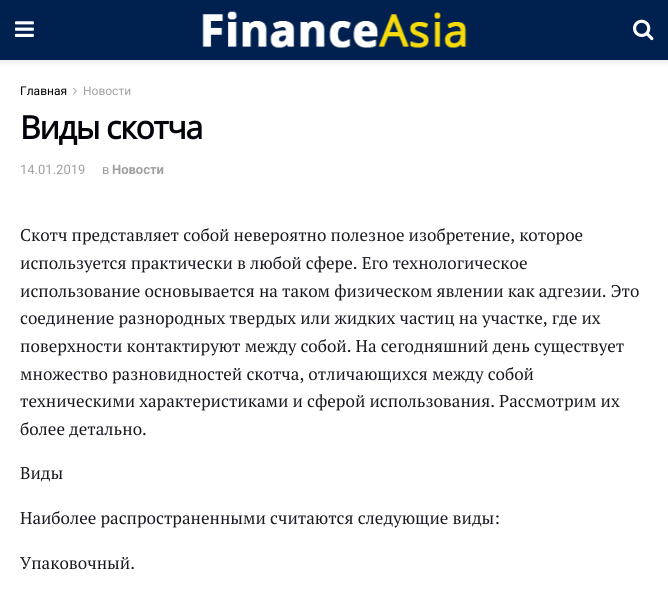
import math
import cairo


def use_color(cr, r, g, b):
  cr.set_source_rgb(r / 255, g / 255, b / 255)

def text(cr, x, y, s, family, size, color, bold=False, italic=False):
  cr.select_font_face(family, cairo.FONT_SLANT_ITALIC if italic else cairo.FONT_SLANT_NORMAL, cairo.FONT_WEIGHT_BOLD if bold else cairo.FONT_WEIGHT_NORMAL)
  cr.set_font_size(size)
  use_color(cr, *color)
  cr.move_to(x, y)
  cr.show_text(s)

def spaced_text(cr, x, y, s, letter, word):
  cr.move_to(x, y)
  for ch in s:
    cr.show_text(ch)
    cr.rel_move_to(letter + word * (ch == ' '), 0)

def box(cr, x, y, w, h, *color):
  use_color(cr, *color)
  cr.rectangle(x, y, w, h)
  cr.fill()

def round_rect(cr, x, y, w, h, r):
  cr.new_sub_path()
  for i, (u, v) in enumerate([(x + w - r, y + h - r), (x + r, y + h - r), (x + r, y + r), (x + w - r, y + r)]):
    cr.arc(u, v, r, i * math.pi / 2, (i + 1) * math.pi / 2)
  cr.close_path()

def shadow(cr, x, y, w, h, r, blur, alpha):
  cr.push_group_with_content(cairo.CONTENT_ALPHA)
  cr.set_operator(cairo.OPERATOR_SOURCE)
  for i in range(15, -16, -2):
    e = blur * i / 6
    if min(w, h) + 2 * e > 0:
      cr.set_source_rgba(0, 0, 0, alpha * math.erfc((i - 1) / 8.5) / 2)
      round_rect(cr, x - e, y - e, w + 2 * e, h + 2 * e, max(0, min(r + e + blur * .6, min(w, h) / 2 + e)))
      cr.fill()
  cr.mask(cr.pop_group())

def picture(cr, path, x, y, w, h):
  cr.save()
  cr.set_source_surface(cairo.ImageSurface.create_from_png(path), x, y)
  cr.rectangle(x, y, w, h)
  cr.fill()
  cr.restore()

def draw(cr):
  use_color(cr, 255, 255, 255)
  cr.paint()
  use_color(cr, 0, 0, 0)
  shadow(cr, 0, 2, 668, 60, 0, 3, 0.1)
  box(cr, 0, 0, 668, 60, 0, 33, 79)
  picture(cr, "img_01.png", 15, 21, 19, 16)
  picture(cr, "img_02.png", 202, 11, 265, 37)
  picture(cr, "img_03.png", 633, 19, 21, 22)
  picture(cr, "img_04.png", 73, 87, 4, 8)
  text(cr, 20, 95, "Главная", "Roboto", 12, (0, 0, 0))
  text(cr, 83, 95, "Новости", "Roboto", 12, (160, 160, 160))
  cr.select_font_face("Open Sans", cairo.FONT_SLANT_NORMAL, cairo.FONT_WEIGHT_BOLD)
  cr.set_font_size(32)
  use_color(cr, 2, 1, 10)
  spaced_text(cr, 20, 139, "Виды скотча", -1.25, 0)
  text(cr, 20, 174, "14.01.2019", "Roboto", 13, (160, 160, 160))
  text(cr, 102, 174, "в", "Roboto", 13, (160, 160, 160))
  text(cr, 112, 174, "Новости", "Roboto", 13, (160, 160, 160), bold=True)
  text(cr, 20, 241, "Скотч представляет собой невероятно полезное изобретение, которое", "PT Serif", 17, (25, 24, 32))
  text(cr, 20, 269, "используется практически в любой сфере. Его технологическое", "PT Serif", 17, (25, 24, 32))
  text(cr, 20, 297, "использование основывается на таком физическом явлении как адгезии. Это", "PT Serif", 17, (25, 24, 32))
  text(cr, 20, 324, "соединение разнородных твердых или жидких частиц на участке, где их", "PT Serif", 17, (25, 24, 32))
  text(cr, 20, 352, "поверхности контактируют между собой. На сегодняшний день существует", "PT Serif", 17, (25, 24, 32))
  text(cr, 20, 380, "множество разновидностей скотча, отличающихся между собой", "PT Serif", 17, (25, 24, 32))
  text(cr, 20, 407, "техническими характеристиками и сферой использования. Рассмотрим их", "PT Serif", 17, (25, 24, 32))
  text(cr, 20, 435, "более детально.", "PT Serif", 17, (25, 24, 32))
  text(cr, 20, 479, "Виды", "PT Serif", 17, (25, 24, 32))
  text(cr, 20, 524, "Наиболее распространенными считаются следующие виды:", "PT Serif", 17, (25, 24, 32))
  text(cr, 20, 569, "Упаковочный.", "PT Serif", 17, (25, 24, 32))


surface = cairo.ImageSurface(cairo.FORMAT_RGB24, 668, 604)
cr = cairo.Context(surface)
options = cairo.FontOptions()
options.set_hint_metrics(cairo.HINT_METRICS_OFF)
options.set_hint_style(cairo.HINT_STYLE_NONE)
cr.set_font_options(options)
cr.set_miter_limit(4)
draw(cr)
surface.write_to_png("out.png")
